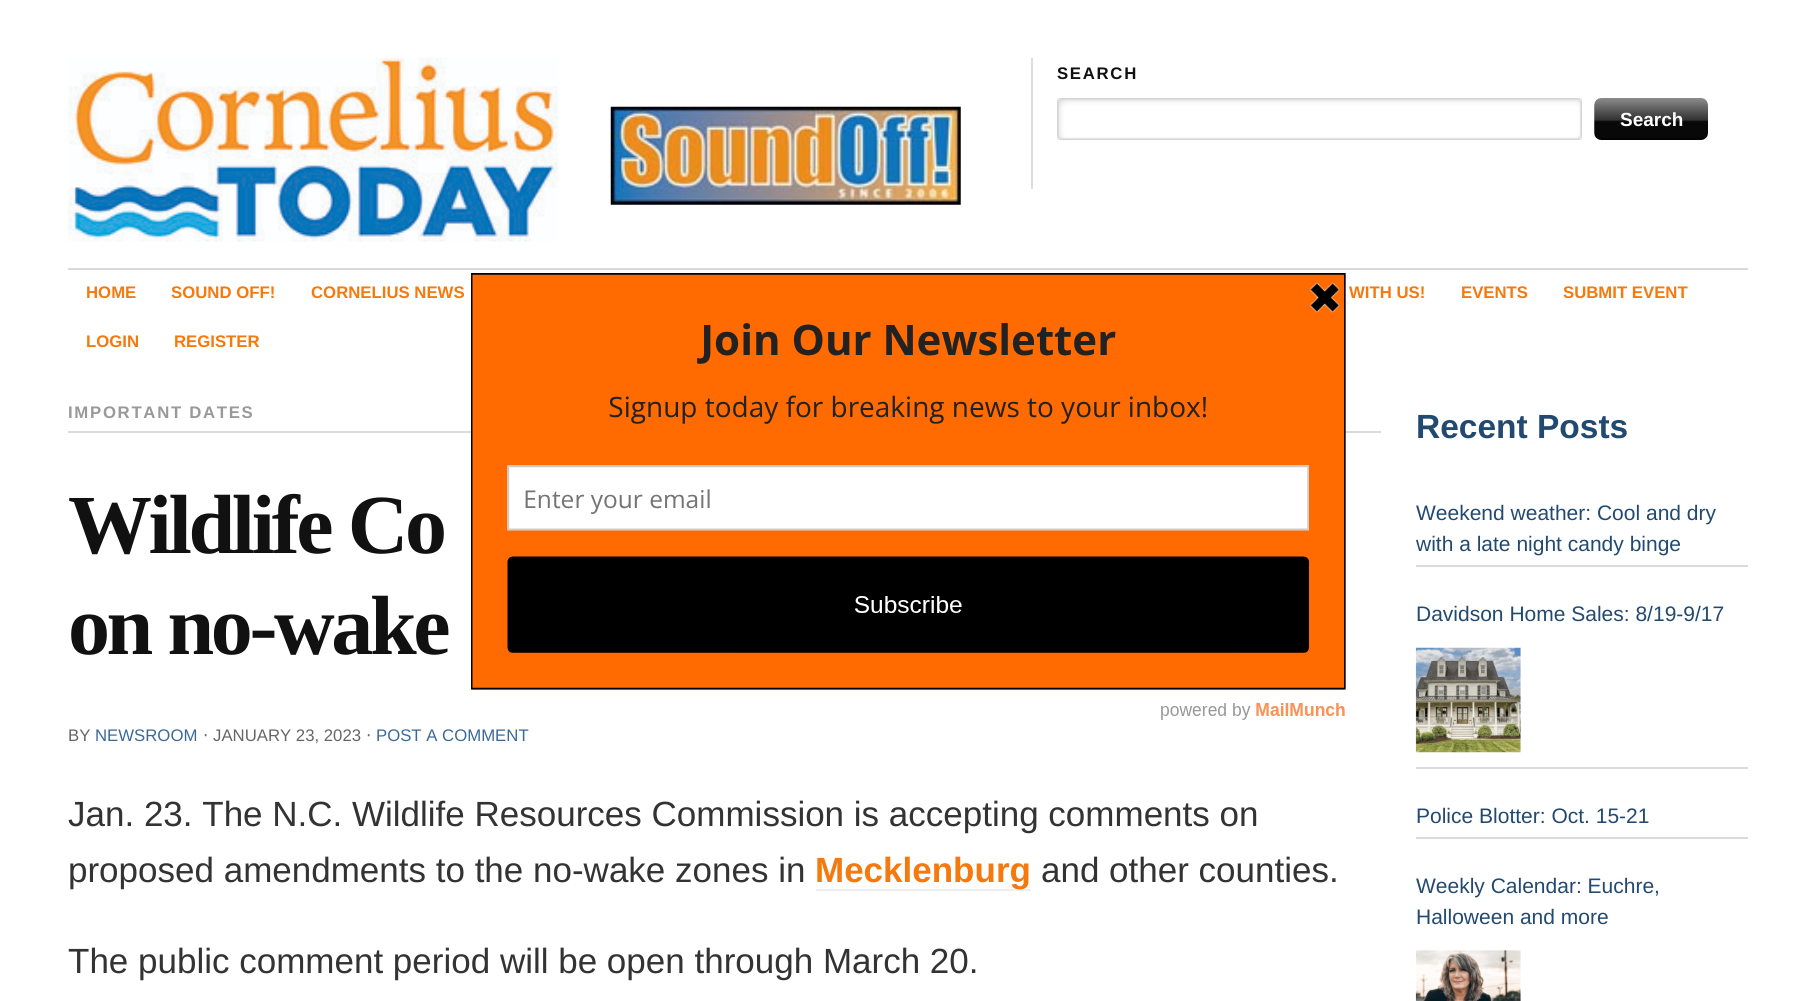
import math
import cairo


def use_color(cr, r, g, b):
  cr.set_source_rgb(r / 255, g / 255, b / 255)

def text(cr, x, y, s, family, size, color, bold=False, italic=False):
  cr.select_font_face(family, cairo.FONT_SLANT_ITALIC if italic else cairo.FONT_SLANT_NORMAL, cairo.FONT_WEIGHT_BOLD if bold else cairo.FONT_WEIGHT_NORMAL)
  cr.set_font_size(size)
  use_color(cr, *color)
  cr.move_to(x, y)
  cr.show_text(s)

def spaced_text(cr, x, y, s, letter, word):
  cr.move_to(x, y)
  for ch in s:
    cr.show_text(ch)
    cr.rel_move_to(letter + word * (ch == ' '), 0)

def box(cr, x, y, w, h, *color):
  use_color(cr, *color)
  cr.rectangle(x, y, w, h)
  cr.fill()

def picture(cr, path, x, y, w, h):
  cr.save()
  cr.set_source_surface(cairo.ImageSurface.create_from_png(path), x, y)
  cr.rectangle(x, y, w, h)
  cr.fill()
  cr.restore()

def draw(cr):
  use_color(cr, 255, 255, 255)
  cr.paint()
  picture(cr, "img_01.png", 68, 57, 491, 185)
  box(cr, 1031, 58, 2, 131, 221, 221, 221)
  picture(cr, "img_02.png", 1057, 98, 525, 42)
  picture(cr, "img_03.png", 1594, 98, 114, 42)
  picture(cr, "img_04.png", 610, 106, 351, 99)
  box(cr, 68, 268, 1680, 2, 218, 218, 218)
  box(cr, 68, 431, 1313, 2, 218, 218, 218)
  box(cr, 816, 889, 215, 2, 238, 238, 238)
  box(cr, 1416, 565, 332, 2, 218, 218, 218)
  box(cr, 1416, 767, 332, 2, 218, 218, 218)
  picture(cr, "img_05.png", 1415, 647, 106, 106)
  box(cr, 1416, 837, 332, 2, 218, 218, 218)
  picture(cr, "img_06.png", 1415, 950, 106, 51)
  picture(cr, "img_07.png", 471, 273, 875, 447)
  cr.select_font_face("Liberation Sans", cairo.FONT_SLANT_NORMAL, cairo.FONT_WEIGHT_BOLD)
  cr.set_font_size(16.75)
  use_color(cr, 17, 17, 17)
  spaced_text(cr, 1057, 79, "SEARCH", 1.7, 0)
  text(cr, 1620, 126, "Search", "Liberation Sans", 19, (255, 255, 255), bold=True)
  text(cr, 86, 298, "HOME", "Liberation Sans", 16.75, (245, 121, 12), bold=True)
  text(cr, 171, 298, "SOUND OFF!", "Liberation Sans", 16.75, (245, 121, 12), bold=True)
  text(cr, 311, 298, "CORNELIUS NEWS", "Liberation Sans", 16.75, (245, 121, 12), bold=True)
  text(cr, 1349, 298, "WITH US!", "Liberation Sans", 16.75, (245, 121, 12), bold=True)
  text(cr, 1461, 298, "EVENTS", "Liberation Sans", 16.75, (245, 121, 12), bold=True)
  text(cr, 1563, 298, "SUBMIT EVENT", "Liberation Sans", 16.75, (245, 121, 12), bold=True)
  text(cr, 86, 347, "LOGIN", "Liberation Sans", 16.75, (245, 121, 12), bold=True)
  text(cr, 174, 347, "REGISTER", "Liberation Sans", 16.75, (245, 121, 12), bold=True)
  use_color(cr, 153, 153, 153)
  spaced_text(cr, 68, 418, "IMPORTANT DATES", 1.7, 0)
  cr.select_font_face("Liberation Serif", cairo.FONT_SLANT_NORMAL, cairo.FONT_WEIGHT_BOLD)
  cr.set_font_size(84)
  use_color(cr, 17, 17, 17)
  spaced_text(cr, 68, 553, "Wildlife Co", -3.4, 0)
  spaced_text(cr, 68, 654, "on no-wake", -3.4, 0)
  text(cr, 68, 741, "BY", "Liberation Sans", 16.75, (102, 102, 102))
  text(cr, 95, 741, "NEWSROOM", "Liberation Sans", 16.75, (58, 105, 153))
  text(cr, 203, 741, "⋅", "DejaVu Sans", 16.75, (102, 102, 102))
  text(cr, 213, 741, "JANUARY 23, 2023", "Liberation Sans", 16.75, (102, 102, 102))
  text(cr, 366, 741, "⋅", "DejaVu Sans", 16.75, (102, 102, 102))
  text(cr, 376, 741, "POST A COMMENT", "Liberation Sans", 16.75, (58, 105, 153))
  text(cr, 68, 826, "Jan. 23. The N.C. Wildlife Resources Commission is accepting comments on", "Liberation Sans", 35, (51, 51, 51))
  text(cr, 68, 882, "proposed amendments to the no-wake zones in", "Liberation Sans", 35, (51, 51, 51))
  text(cr, 815, 882, "Mecklenburg", "Liberation Sans", 35, (245, 121, 12), bold=True)
  text(cr, 1041, 882, "and other counties.", "Liberation Sans", 35, (51, 51, 51))
  text(cr, 68, 973, "The public comment period will be open through March 20.", "Liberation Sans", 35, (51, 51, 51))
  text(cr, 1416, 438, "Recent Posts", "Liberation Sans", 33.5, (34, 73, 112), bold=True)
  text(cr, 1416, 520, "Weekend weather: Cool and dry", "Liberation Sans", 21, (34, 73, 112))
  text(cr, 1416, 551, "with a late night candy binge", "Liberation Sans", 21, (34, 73, 112))
  text(cr, 1416, 621, "Davidson Home Sales: 8/19-9/17", "Liberation Sans", 21, (34, 73, 112))
  text(cr, 1416, 823, "Police Blotter: Oct. 15-21", "Liberation Sans", 21, (34, 73, 112))
  text(cr, 1416, 893, "Weekly Calendar: Euchre,", "Liberation Sans", 21, (34, 73, 112))
  text(cr, 1416, 924, "Halloween and more", "Liberation Sans", 21, (34, 73, 112))


surface = cairo.ImageSurface(cairo.FORMAT_RGB24, 1815, 1001)
cr = cairo.Context(surface)
options = cairo.FontOptions()
options.set_hint_metrics(cairo.HINT_METRICS_OFF)
options.set_hint_style(cairo.HINT_STYLE_NONE)
cr.set_font_options(options)
cr.set_miter_limit(4)
draw(cr)
surface.write_to_png("out.png")
